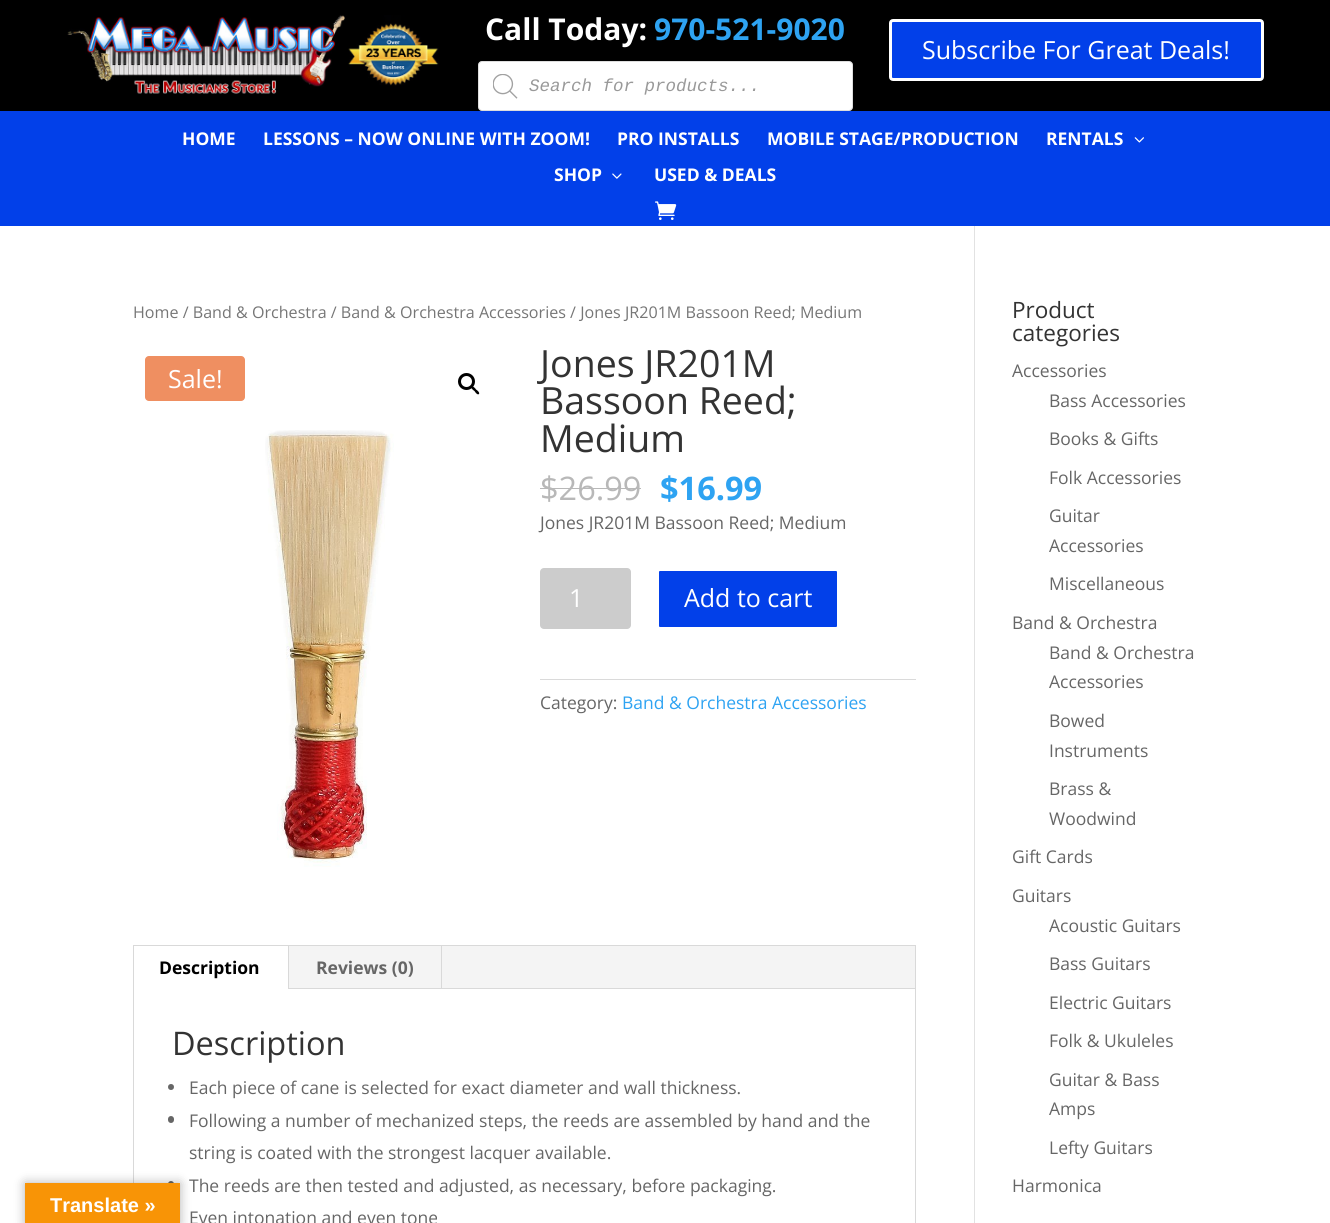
import math
import cairo


def use_color(cr, r, g, b):
  cr.set_source_rgb(r / 255, g / 255, b / 255)

def text(cr, x, y, s, family, size, color, bold=False, italic=False):
  cr.select_font_face(family, cairo.FONT_SLANT_ITALIC if italic else cairo.FONT_SLANT_NORMAL, cairo.FONT_WEIGHT_BOLD if bold else cairo.FONT_WEIGHT_NORMAL)
  cr.set_font_size(size)
  use_color(cr, *color)
  cr.move_to(x, y)
  cr.show_text(s)

def box(cr, x, y, w, h, *color):
  use_color(cr, *color)
  cr.rectangle(x, y, w, h)
  cr.fill()

def round_rect(cr, x, y, w, h, r):
  cr.new_sub_path()
  for i, (u, v) in enumerate([(x + w - r, y + h - r), (x + r, y + h - r), (x + r, y + r), (x + w - r, y + r)]):
    cr.arc(u, v, r, i * math.pi / 2, (i + 1) * math.pi / 2)
  cr.close_path()

def shadow(cr, x, y, w, h, r, blur, alpha):
  cr.push_group_with_content(cairo.CONTENT_ALPHA)
  cr.set_operator(cairo.OPERATOR_SOURCE)
  for i in range(15, -16, -2):
    e = blur * i / 6
    if min(w, h) + 2 * e > 0:
      cr.set_source_rgba(0, 0, 0, alpha * math.erfc((i - 1) / 8.5) / 2)
      round_rect(cr, x - e, y - e, w + 2 * e, h + 2 * e, max(0, min(r + e + blur * .6, min(w, h) / 2 + e)))
      cr.fill()
  cr.mask(cr.pop_group())

def picture(cr, path, x, y, w, h):
  cr.save()
  cr.set_source_surface(cairo.ImageSurface.create_from_png(path), x, y)
  cr.rectangle(x, y, w, h)
  cr.fill()
  cr.restore()

def draw(cr):
  use_color(cr, 0, 0, 0)
  cr.paint()
  box(cr, 0, 226, 1330, 997, 255, 255, 255)
  cr.rectangle(133.5, 945.5, 782, 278)
  use_color(cr, 217, 217, 217)
  cr.set_line_width(1)
  cr.stroke()
  use_color(cr, 102, 102, 102)
  round_rect(cr, 168, 1181, 6, 7, 3)
  cr.fill()
  use_color(cr, 0, 0, 0)
  shadow(cr, 25, 1183, 155, 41, 0, 5.5, 0.3)
  box(cr, 25, 1183, 155, 40, 248, 148, 6)
  picture(cr, "img_01.png", 67, 15, 372, 79)
  use_color(cr, 255, 255, 255)
  round_rect(cr, 478.5, 61.5, 374, 49, 3.5)
  cr.fill_preserve()
  use_color(cr, 221, 221, 221)
  cr.stroke()
  picture(cr, "img_02.png", 493, 74, 25, 25)
  use_color(cr, 2, 64, 233)
  round_rect(cr, 890.5, 20.5, 372, 59, 2.5)
  cr.fill_preserve()
  use_color(cr, 255, 255, 255)
  cr.set_line_width(3)
  cr.stroke()
  box(cr, 0, 111, 1330, 115, 2, 64, 233)
  picture(cr, "img_03.png", 1134, 137, 10, 6)
  picture(cr, "img_04.png", 612, 173, 10, 6)
  picture(cr, "img_05.png", 655, 201, 22, 19)
  box(cr, 974, 226, 1, 997, 226, 226, 226)
  use_color(cr, 239, 143, 97)
  round_rect(cr, 145, 356, 100, 45, 4)
  cr.fill()
  cr.arc(466.5, 381.5, 7, 0, 2 * math.pi)
  use_color(cr, 0, 0, 0)
  cr.stroke()
  cr.new_path()
  cr.move_to(471.5, 387)
  cr.curve_to(473, 385.5, 475.5, 388.5, 476, 389.5)
  cr.curve_to(477, 390, 480, 392.5, 479, 394)
  cr.curve_to(477.5, 395.5, 475, 392, 474.5, 391)
  cr.curve_to(473.5, 390.5, 470.5, 388, 471.5, 387)
  cr.close_path()
  cr.fill()
  picture(cr, "img_06.png", 265, 430, 129, 437)
  box(cr, 540, 488, 101, 1, 184, 184, 184)
  use_color(cr, 204, 204, 204)
  round_rect(cr, 540, 568, 91, 61, 4)
  cr.fill()
  use_color(cr, 2, 64, 233)
  round_rect(cr, 657.5, 569.5, 181, 59, 2.5)
  cr.fill_preserve()
  use_color(cr, 255, 255, 255)
  cr.stroke()
  box(cr, 540, 679, 376, 1, 218, 218, 218)
  box(cr, 289, 946, 626, 42, 244, 244, 244)
  box(cr, 288, 946, 1, 43, 217, 217, 217)
  box(cr, 441, 946, 1, 43, 217, 217, 217)
  box(cr, 289, 988, 626, 1, 217, 217, 217)
  use_color(cr, 102, 102, 102)
  cr.arc(171, 1087, 3, 0, 2 * math.pi)
  cr.fill()
  round_rect(cr, 168, 1116, 6, 7, 3)
  cr.fill()
  text(cr, 50, 1212, "Translate »", "Liberation Sans", 20, (255, 255, 255), bold=True)
  text(cr, 485, 40, "Call Today:", "Open Sans", 30, (255, 255, 255), bold=True)
  text(cr, 654, 40, "970-521-9020", "Open Sans", 30, (46, 163, 242), bold=True)
  text(cr, 529, 91, "Search for products...", "Liberation Mono", 17.5, (153, 153, 153), italic=True)
  text(cr, 922, 59, "Subscribe For Great Deals!", "Open Sans", 25, (255, 255, 255))
  text(cr, 182, 145, "HOME", "Open Sans", 17.5, (255, 255, 255), bold=True)
  text(cr, 263, 145, "LESSONS – NOW ONLINE WITH ZOOM!", "Open Sans", 17.5, (255, 255, 255), bold=True)
  text(cr, 617, 145, "PRO INSTALLS", "Open Sans", 17.5, (255, 255, 255), bold=True)
  text(cr, 767, 145, "MOBILE STAGE/PRODUCTION", "Open Sans", 17.5, (255, 255, 255), bold=True)
  text(cr, 1046, 145, "RENTALS", "Open Sans", 17.5, (255, 255, 255), bold=True)
  text(cr, 554, 181, "SHOP", "Open Sans", 17.5, (255, 255, 255), bold=True)
  text(cr, 654, 181, "USED & DEALS", "Open Sans", 17.5, (255, 255, 255), bold=True)
  text(cr, 133, 318, "Home / Band & Orchestra / Band & Orchestra Accessories / Jones JR201M Bassoon Reed; Medium", "Open Sans", 16.1, (118, 118, 118))
  text(cr, 168, 388, "Sale!", "Open Sans", 25, (255, 255, 255))
  text(cr, 540, 377, "Jones JR201M", "Open Sans", 37.5, (51, 51, 51))
  text(cr, 540, 414, "Bassoon Reed;", "Open Sans", 37.5, (51, 51, 51))
  text(cr, 540, 452, "Medium", "Open Sans", 37.5, (51, 51, 51))
  text(cr, 540, 500, "$26.99", "Open Sans", 32.5, (184, 184, 184))
  text(cr, 660, 500, "$16.99", "Open Sans", 32.5, (46, 163, 242), bold=True)
  text(cr, 540, 529, "Jones JR201M Bassoon Reed; Medium", "Open Sans", 17.5, (102, 102, 102))
  text(cr, 569, 607, "1", "Open Sans", 25, (255, 255, 255))
  text(cr, 684, 607, "Add to cart", "Open Sans", 25, (255, 255, 255))
  text(cr, 540, 709, "Category:", "Open Sans", 17.5, (102, 102, 102))
  text(cr, 622, 709, "Band & Orchestra Accessories", "Open Sans", 17.5, (46, 163, 242))
  text(cr, 159, 974, "Description", "Open Sans", 17.5, (0, 0, 0), bold=True)
  text(cr, 316, 974, "Reviews (0)", "Open Sans", 17.5, (102, 102, 102), bold=True)
  text(cr, 172, 1055, "Description", "Open Sans", 32.5, (51, 51, 51))
  text(cr, 189, 1094, "Each piece of cane is selected for exact diameter and wall thickness.", "Open Sans", 17.5, (102, 102, 102))
  text(cr, 189, 1127, "Following a number of mechanized steps, the reeds are assembled by hand and the", "Open Sans", 17.5, (102, 102, 102))
  text(cr, 189, 1159, "string is coated with the strongest lacquer available.", "Open Sans", 17.5, (102, 102, 102))
  text(cr, 189, 1192, "The reeds are then tested and adjusted, as necessary, before packaging.", "Open Sans", 17.5, (102, 102, 102))
  text(cr, 189, 1224, "Even intonation and even tone", "Open Sans", 17.5, (102, 102, 102))
  text(cr, 1012, 318, "Product", "Open Sans", 22.5, (51, 51, 51))
  text(cr, 1012, 341, "categories", "Open Sans", 22.5, (51, 51, 51))
  text(cr, 1012, 377, "Accessories", "Open Sans", 17.5, (102, 102, 102))
  text(cr, 1049, 407, "Bass Accessories", "Open Sans", 17.5, (102, 102, 102))
  text(cr, 1049, 445, "Books & Gifts", "Open Sans", 17.5, (102, 102, 102))
  text(cr, 1049, 484, "Folk Accessories", "Open Sans", 17.5, (102, 102, 102))
  text(cr, 1049, 522, "Guitar", "Open Sans", 17.5, (102, 102, 102))
  text(cr, 1049, 552, "Accessories", "Open Sans", 17.5, (102, 102, 102))
  text(cr, 1049, 590, "Miscellaneous", "Open Sans", 17.5, (102, 102, 102))
  text(cr, 1012, 629, "Band & Orchestra", "Open Sans", 17.5, (102, 102, 102))
  text(cr, 1049, 659, "Band & Orchestra", "Open Sans", 17.5, (102, 102, 102))
  text(cr, 1049, 688, "Accessories", "Open Sans", 17.5, (102, 102, 102))
  text(cr, 1049, 727, "Bowed", "Open Sans", 17.5, (102, 102, 102))
  text(cr, 1049, 757, "Instruments", "Open Sans", 17.5, (102, 102, 102))
  text(cr, 1049, 795, "Brass &", "Open Sans", 17.5, (102, 102, 102))
  text(cr, 1049, 825, "Woodwind", "Open Sans", 17.5, (102, 102, 102))
  text(cr, 1012, 863, "Gift Cards", "Open Sans", 17.5, (102, 102, 102))
  text(cr, 1012, 902, "Guitars", "Open Sans", 17.5, (102, 102, 102))
  text(cr, 1049, 932, "Acoustic Guitars", "Open Sans", 17.5, (102, 102, 102))
  text(cr, 1049, 970, "Bass Guitars", "Open Sans", 17.5, (102, 102, 102))
  text(cr, 1049, 1009, "Electric Guitars", "Open Sans", 17.5, (102, 102, 102))
  text(cr, 1049, 1047, "Folk & Ukuleles", "Open Sans", 17.5, (102, 102, 102))
  text(cr, 1049, 1086, "Guitar & Bass", "Open Sans", 17.5, (102, 102, 102))
  text(cr, 1049, 1115, "Amps", "Open Sans", 17.5, (102, 102, 102))
  text(cr, 1049, 1154, "Lefty Guitars", "Open Sans", 17.5, (102, 102, 102))
  text(cr, 1012, 1192, "Harmonica", "Open Sans", 17.5, (102, 102, 102))


surface = cairo.ImageSurface(cairo.FORMAT_RGB24, 1330, 1223)
cr = cairo.Context(surface)
options = cairo.FontOptions()
options.set_hint_metrics(cairo.HINT_METRICS_OFF)
options.set_hint_style(cairo.HINT_STYLE_NONE)
cr.set_font_options(options)
cr.set_miter_limit(4)
draw(cr)
surface.write_to_png("out.png")
